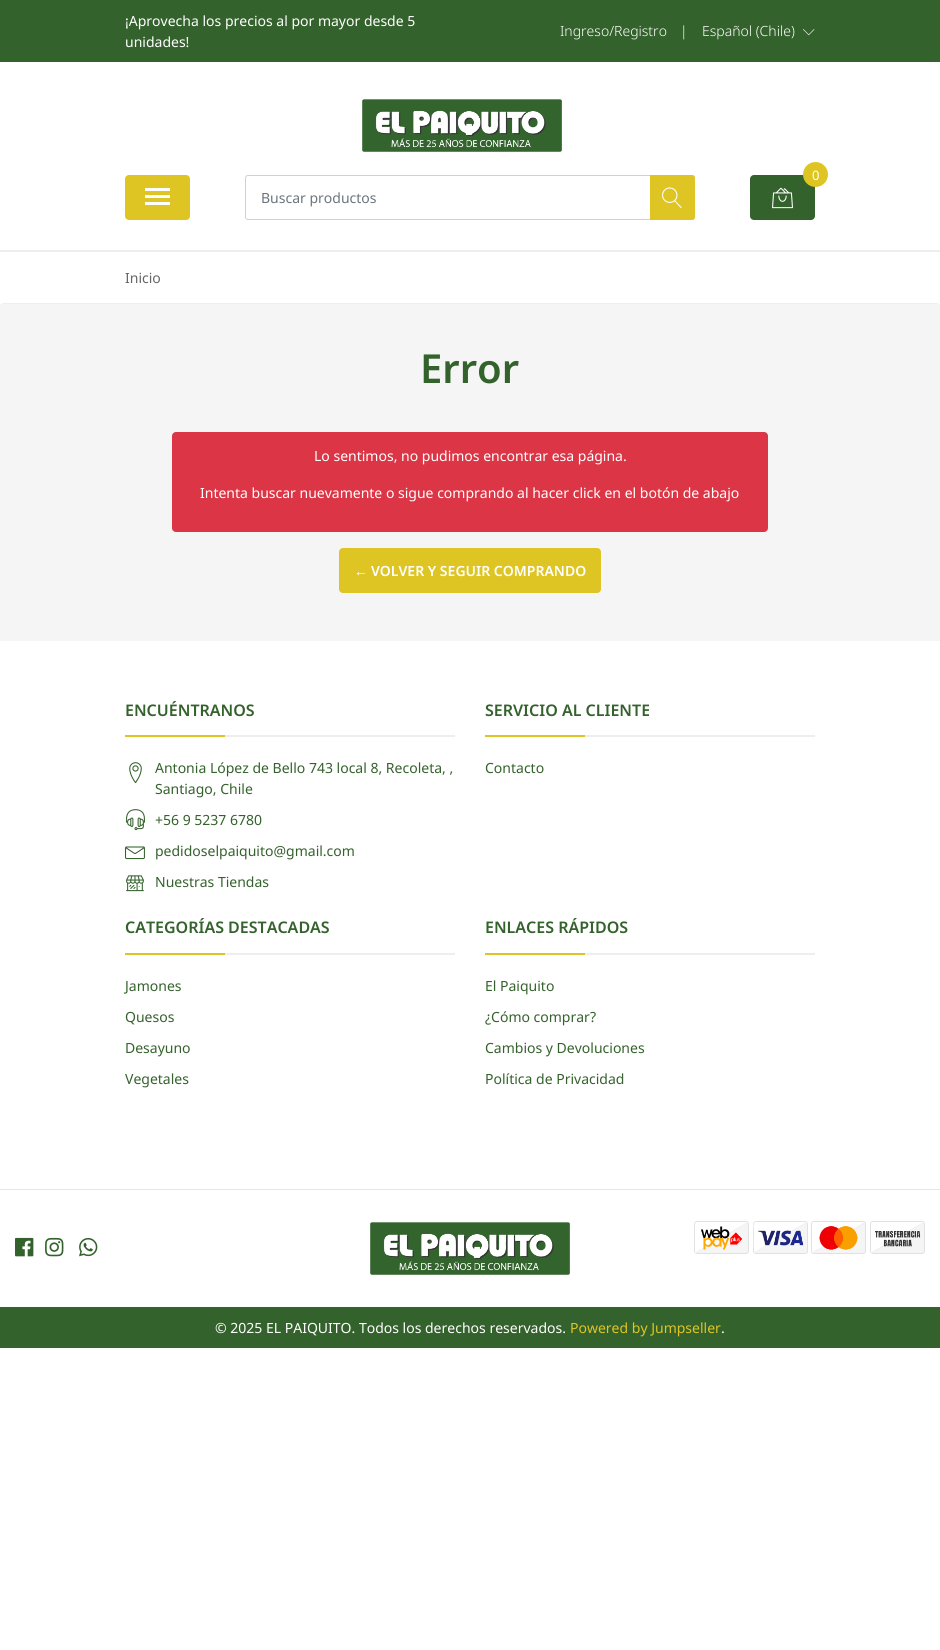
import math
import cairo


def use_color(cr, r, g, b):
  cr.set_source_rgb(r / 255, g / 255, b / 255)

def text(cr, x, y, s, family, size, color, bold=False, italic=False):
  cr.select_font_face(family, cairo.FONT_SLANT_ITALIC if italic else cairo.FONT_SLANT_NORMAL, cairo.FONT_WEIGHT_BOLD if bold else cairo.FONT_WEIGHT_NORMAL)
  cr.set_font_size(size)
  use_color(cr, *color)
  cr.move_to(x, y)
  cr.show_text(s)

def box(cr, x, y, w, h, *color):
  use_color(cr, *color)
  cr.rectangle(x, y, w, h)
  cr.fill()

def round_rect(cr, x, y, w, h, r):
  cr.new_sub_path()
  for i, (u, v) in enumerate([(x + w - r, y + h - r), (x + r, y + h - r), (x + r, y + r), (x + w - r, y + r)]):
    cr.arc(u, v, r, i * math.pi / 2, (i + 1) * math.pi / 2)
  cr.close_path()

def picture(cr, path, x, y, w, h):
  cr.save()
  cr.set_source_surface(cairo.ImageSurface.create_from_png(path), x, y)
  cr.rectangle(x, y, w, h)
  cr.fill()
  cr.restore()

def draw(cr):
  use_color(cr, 255, 255, 255)
  cr.paint()
  box(cr, 0, 0, 940, 62, 52, 98, 44)
  picture(cr, "img_01.png", 803, 29, 12, 7)
  picture(cr, "img_02.png", 362, 99, 200, 53)
  use_color(cr, 222, 197, 35)
  round_rect(cr, 125, 175, 65, 45, 4)
  cr.fill()
  box(cr, 145, 188, 25, 3, 255, 255, 255)
  box(cr, 145, 195, 25, 3, 255, 255, 255)
  box(cr, 145, 202, 25, 3, 255, 255, 255)
  round_rect(cr, 245.5, 175.5, 449, 44, 2.5)
  use_color(cr, 209, 209, 209)
  cr.set_line_width(1)
  cr.stroke()
  use_color(cr, 222, 197, 35)
  cr.new_path()
  cr.move_to(650, 175)
  cr.line_to(692, 175)
  cr.curve_to(693.5, 175, 695, 176.5, 695, 178)
  cr.line_to(695, 217)
  cr.curve_to(695, 218.5, 693.5, 220, 692, 220)
  cr.line_to(650, 220)
  cr.close_path()
  cr.fill()
  picture(cr, "img_03.png", 662, 187, 20, 21)
  use_color(cr, 52, 98, 44)
  round_rect(cr, 750, 175, 65, 45, 4)
  cr.fill()
  picture(cr, "img_04.png", 772, 187, 21, 22)
  use_color(cr, 222, 197, 35)
  cr.arc(815.5, 174.5, 12.5, 0, 2 * math.pi)
  cr.fill()
  box(cr, 0, 250, 940, 2, 238, 238, 238)
  box(cr, 2, 303, 936, 1, 238, 238, 238)
  box(cr, 0, 304, 940, 337, 245, 245, 245)
  use_color(cr, 220, 53, 69)
  round_rect(cr, 172, 432, 596, 100, 4)
  cr.fill()
  use_color(cr, 222, 197, 35)
  round_rect(cr, 339, 548, 262, 45, 4)
  cr.fill()
  box(cr, 225, 735, 230, 2, 238, 238, 238)
  box(cr, 125, 735, 100, 2, 222, 197, 35)
  picture(cr, "img_05.png", 129, 762, 13, 22)
  picture(cr, "img_06.png", 126, 809, 19, 22)
  picture(cr, "img_07.png", 125, 846, 20, 14)
  picture(cr, "img_08.png", 126, 875, 18, 17)
  box(cr, 585, 735, 230, 2, 238, 238, 238)
  box(cr, 485, 735, 100, 2, 222, 197, 35)
  box(cr, 225, 953, 230, 2, 238, 238, 238)
  box(cr, 125, 953, 100, 2, 222, 197, 35)
  box(cr, 585, 953, 230, 2, 238, 238, 238)
  box(cr, 485, 953, 100, 2, 222, 197, 35)
  box(cr, 0, 1189, 940, 1, 230, 230, 230)
  picture(cr, "img_09.png", 15, 1237, 19, 20)
  picture(cr, "img_10.png", 45, 1237, 19, 20)
  picture(cr, "img_11.png", 79, 1237, 19, 20)
  picture(cr, "img_12.png", 370, 1222, 200, 53)
  use_color(cr, 245, 245, 245)
  round_rect(cr, 694.5, 1221.5, 54, 32, 2.5)
  cr.fill_preserve()
  use_color(cr, 225, 225, 225)
  cr.stroke()
  use_color(cr, 255, 255, 255)
  cr.new_path()
  cr.move_to(697, 1222)
  cr.line_to(746, 1222)
  cr.line_to(748, 1223)
  cr.line_to(696, 1253)
  cr.curve_to(695, 1253, 695, 1252, 695, 1251)
  cr.line_to(695, 1224)
  cr.curve_to(695, 1223, 696, 1222, 697, 1222)
  cr.close_path()
  cr.fill()
  cr.save()
  round_rect(cr, 695, 1222, 53, 31, 2)
  cr.clip()
  cr.new_path()
  cr.move_to(713, 1128.5)
  cr.line_to(762.5, 1214)
  cr.line_to(677, 1263.5)
  cr.line_to(627.5, 1178)
  cr.close_path()
  use_color(cr, 238, 238, 238)
  cr.stroke()
  cr.restore()
  picture(cr, "img_13.png", 701, 1226, 41, 24)
  use_color(cr, 245, 245, 245)
  round_rect(cr, 753.5, 1221.5, 54, 32, 2.5)
  cr.fill_preserve()
  use_color(cr, 225, 225, 225)
  cr.stroke()
  use_color(cr, 255, 255, 255)
  cr.new_path()
  cr.move_to(756, 1222)
  cr.line_to(805, 1222)
  cr.line_to(807, 1223)
  cr.line_to(755, 1253)
  cr.curve_to(753, 1251, 754, 1236, 754, 1233)
  cr.curve_to(754, 1231, 752, 1222, 756, 1222)
  cr.close_path()
  cr.fill()
  cr.save()
  round_rect(cr, 754, 1222, 53, 31, 2)
  cr.clip()
  cr.new_path()
  cr.move_to(772, 1128.5)
  cr.line_to(821.5, 1214)
  cr.line_to(735.5, 1263.5)
  cr.line_to(686, 1178)
  cr.close_path()
  use_color(cr, 238, 238, 238)
  cr.stroke()
  cr.restore()
  picture(cr, "img_14.png", 758, 1230, 46, 16)
  use_color(cr, 245, 245, 245)
  round_rect(cr, 811.5, 1221.5, 54, 32, 2.5)
  cr.fill_preserve()
  use_color(cr, 225, 225, 225)
  cr.stroke()
  use_color(cr, 255, 255, 255)
  cr.new_path()
  cr.move_to(814, 1222)
  cr.line_to(863, 1222)
  cr.line_to(865, 1223)
  cr.line_to(813, 1253)
  cr.curve_to(813, 1253, 812, 1252, 812, 1251)
  cr.line_to(812, 1224)
  cr.curve_to(812, 1223, 813, 1222, 814, 1222)
  cr.close_path()
  cr.fill()
  cr.save()
  round_rect(cr, 812, 1222, 53, 31, 2)
  cr.clip()
  cr.new_path()
  cr.move_to(830.5, 1128.5)
  cr.line_to(880, 1214)
  cr.line_to(794, 1263.5)
  cr.line_to(744.5, 1178)
  cr.close_path()
  use_color(cr, 238, 238, 238)
  cr.stroke()
  cr.restore()
  picture(cr, "img_15.png", 819, 1226, 39, 24)
  use_color(cr, 245, 245, 245)
  round_rect(cr, 870.5, 1221.5, 54, 32, 2.5)
  cr.fill_preserve()
  use_color(cr, 225, 225, 225)
  cr.stroke()
  use_color(cr, 255, 255, 255)
  cr.new_path()
  cr.move_to(873, 1222)
  cr.line_to(922, 1222)
  cr.line_to(924, 1223)
  cr.line_to(872, 1253)
  cr.curve_to(871, 1253, 871, 1252, 871, 1251)
  cr.line_to(871, 1224)
  cr.curve_to(871, 1223, 872, 1222, 873, 1222)
  cr.close_path()
  cr.fill()
  cr.save()
  round_rect(cr, 871, 1222, 53, 31, 2)
  cr.clip()
  cr.new_path()
  cr.move_to(889, 1128.5)
  cr.line_to(938.5, 1214)
  cr.line_to(853, 1263.5)
  cr.line_to(803.5, 1178)
  cr.close_path()
  use_color(cr, 238, 238, 238)
  cr.stroke()
  cr.restore()
  picture(cr, "img_16.png", 875, 1230, 46, 17)
  box(cr, 0, 1307, 940, 41, 52, 98, 44)
  text(cr, 125, 26, "¡Aprovecha los precios al por mayor desde 5", "Noto Sans", 14, (255, 255, 255))
  text(cr, 125, 47, "unidades!", "Noto Sans", 14, (255, 255, 255))
  text(cr, 560, 36, "Ingreso/Registro", "Noto Sans Light", 14, (255, 255, 255))
  text(cr, 680, 36, "|", "Noto Sans Light", 14, (255, 255, 255))
  text(cr, 702, 36, "Español (Chile)", "Noto Sans Light", 14, (255, 255, 255))
  text(cr, 261, 203, "Buscar productos", "Noto Sans", 14, (108, 117, 125))
  text(cr, 812, 180, "0", "Noto Sans", 13, (255, 255, 255))
  text(cr, 125, 283, "Inicio", "Noto Sans", 14, (102, 102, 102))
  text(cr, 420, 383, "Error", "Noto Sans SemiBold", 40, (52, 98, 44))
  text(cr, 314, 461, "Lo sentimos, no pudimos encontrar esa página.", "Noto Sans", 14, (255, 255, 255))
  text(cr, 200, 498, "Intenta buscar nuevamente o sigue comprando al hacer click en el botón de abajo", "Noto Sans", 14, (255, 255, 255))
  text(cr, 354, 576, "←", "Liberation Serif", 14, (255, 255, 255), bold=True)
  text(cr, 371, 576, "VOLVER Y SEGUIR COMPRANDO", "Noto Sans SemiBold", 14, (255, 255, 255))
  text(cr, 125, 716, "ENCUÉNTRANOS", "Noto Sans SemiBold", 16, (52, 98, 44))
  text(cr, 155, 773, "Antonia López de Bello 743 local 8, Recoleta, ,", "Noto Sans", 14, (52, 98, 44))
  text(cr, 155, 794, "Santiago, Chile", "Noto Sans", 14, (52, 98, 44))
  text(cr, 155, 825, "+56 9 5237 6780", "Noto Sans", 14, (52, 98, 44))
  text(cr, 155, 856, "pedidoselpaiquito@gmail.com", "Noto Sans", 14, (52, 98, 44))
  text(cr, 155, 887, "Nuestras Tiendas", "Noto Sans", 14, (52, 98, 44))
  text(cr, 485, 716, "SERVICIO AL CLIENTE", "Noto Sans SemiBold", 16, (52, 98, 44))
  text(cr, 485, 773, "Contacto", "Noto Sans", 14, (52, 98, 44))
  text(cr, 125, 933, "CATEGORÍAS DESTACADAS", "Noto Sans SemiBold", 16, (52, 98, 44))
  text(cr, 125, 991, "Jamones", "Noto Sans", 14, (52, 98, 44))
  text(cr, 125, 1022, "Quesos", "Noto Sans", 14, (52, 98, 44))
  text(cr, 125, 1053, "Desayuno", "Noto Sans", 14, (52, 98, 44))
  text(cr, 125, 1084, "Vegetales", "Noto Sans", 14, (52, 98, 44))
  text(cr, 485, 933, "ENLACES RÁPIDOS", "Noto Sans SemiBold", 16, (52, 98, 44))
  text(cr, 485, 991, "El Paiquito", "Noto Sans", 14, (52, 98, 44))
  text(cr, 485, 1022, "¿Cómo comprar?", "Noto Sans", 14, (52, 98, 44))
  text(cr, 485, 1053, "Cambios y Devoluciones", "Noto Sans", 14, (52, 98, 44))
  text(cr, 485, 1084, "Política de Privacidad", "Noto Sans", 14, (52, 98, 44))
  text(cr, 215, 1333, "© 2025 EL PAIQUITO. Todos los derechos reservados.", "Noto Sans", 14, (255, 255, 255))
  text(cr, 570, 1333, "Powered by Jumpseller", "Noto Sans", 14, (222, 197, 35))
  text(cr, 721, 1333, ".", "Noto Sans", 14, (255, 255, 255))


surface = cairo.ImageSurface(cairo.FORMAT_RGB24, 940, 1650)
cr = cairo.Context(surface)
options = cairo.FontOptions()
options.set_hint_metrics(cairo.HINT_METRICS_OFF)
options.set_hint_style(cairo.HINT_STYLE_NONE)
cr.set_font_options(options)
cr.set_miter_limit(4)
draw(cr)
surface.write_to_png("out.png")
